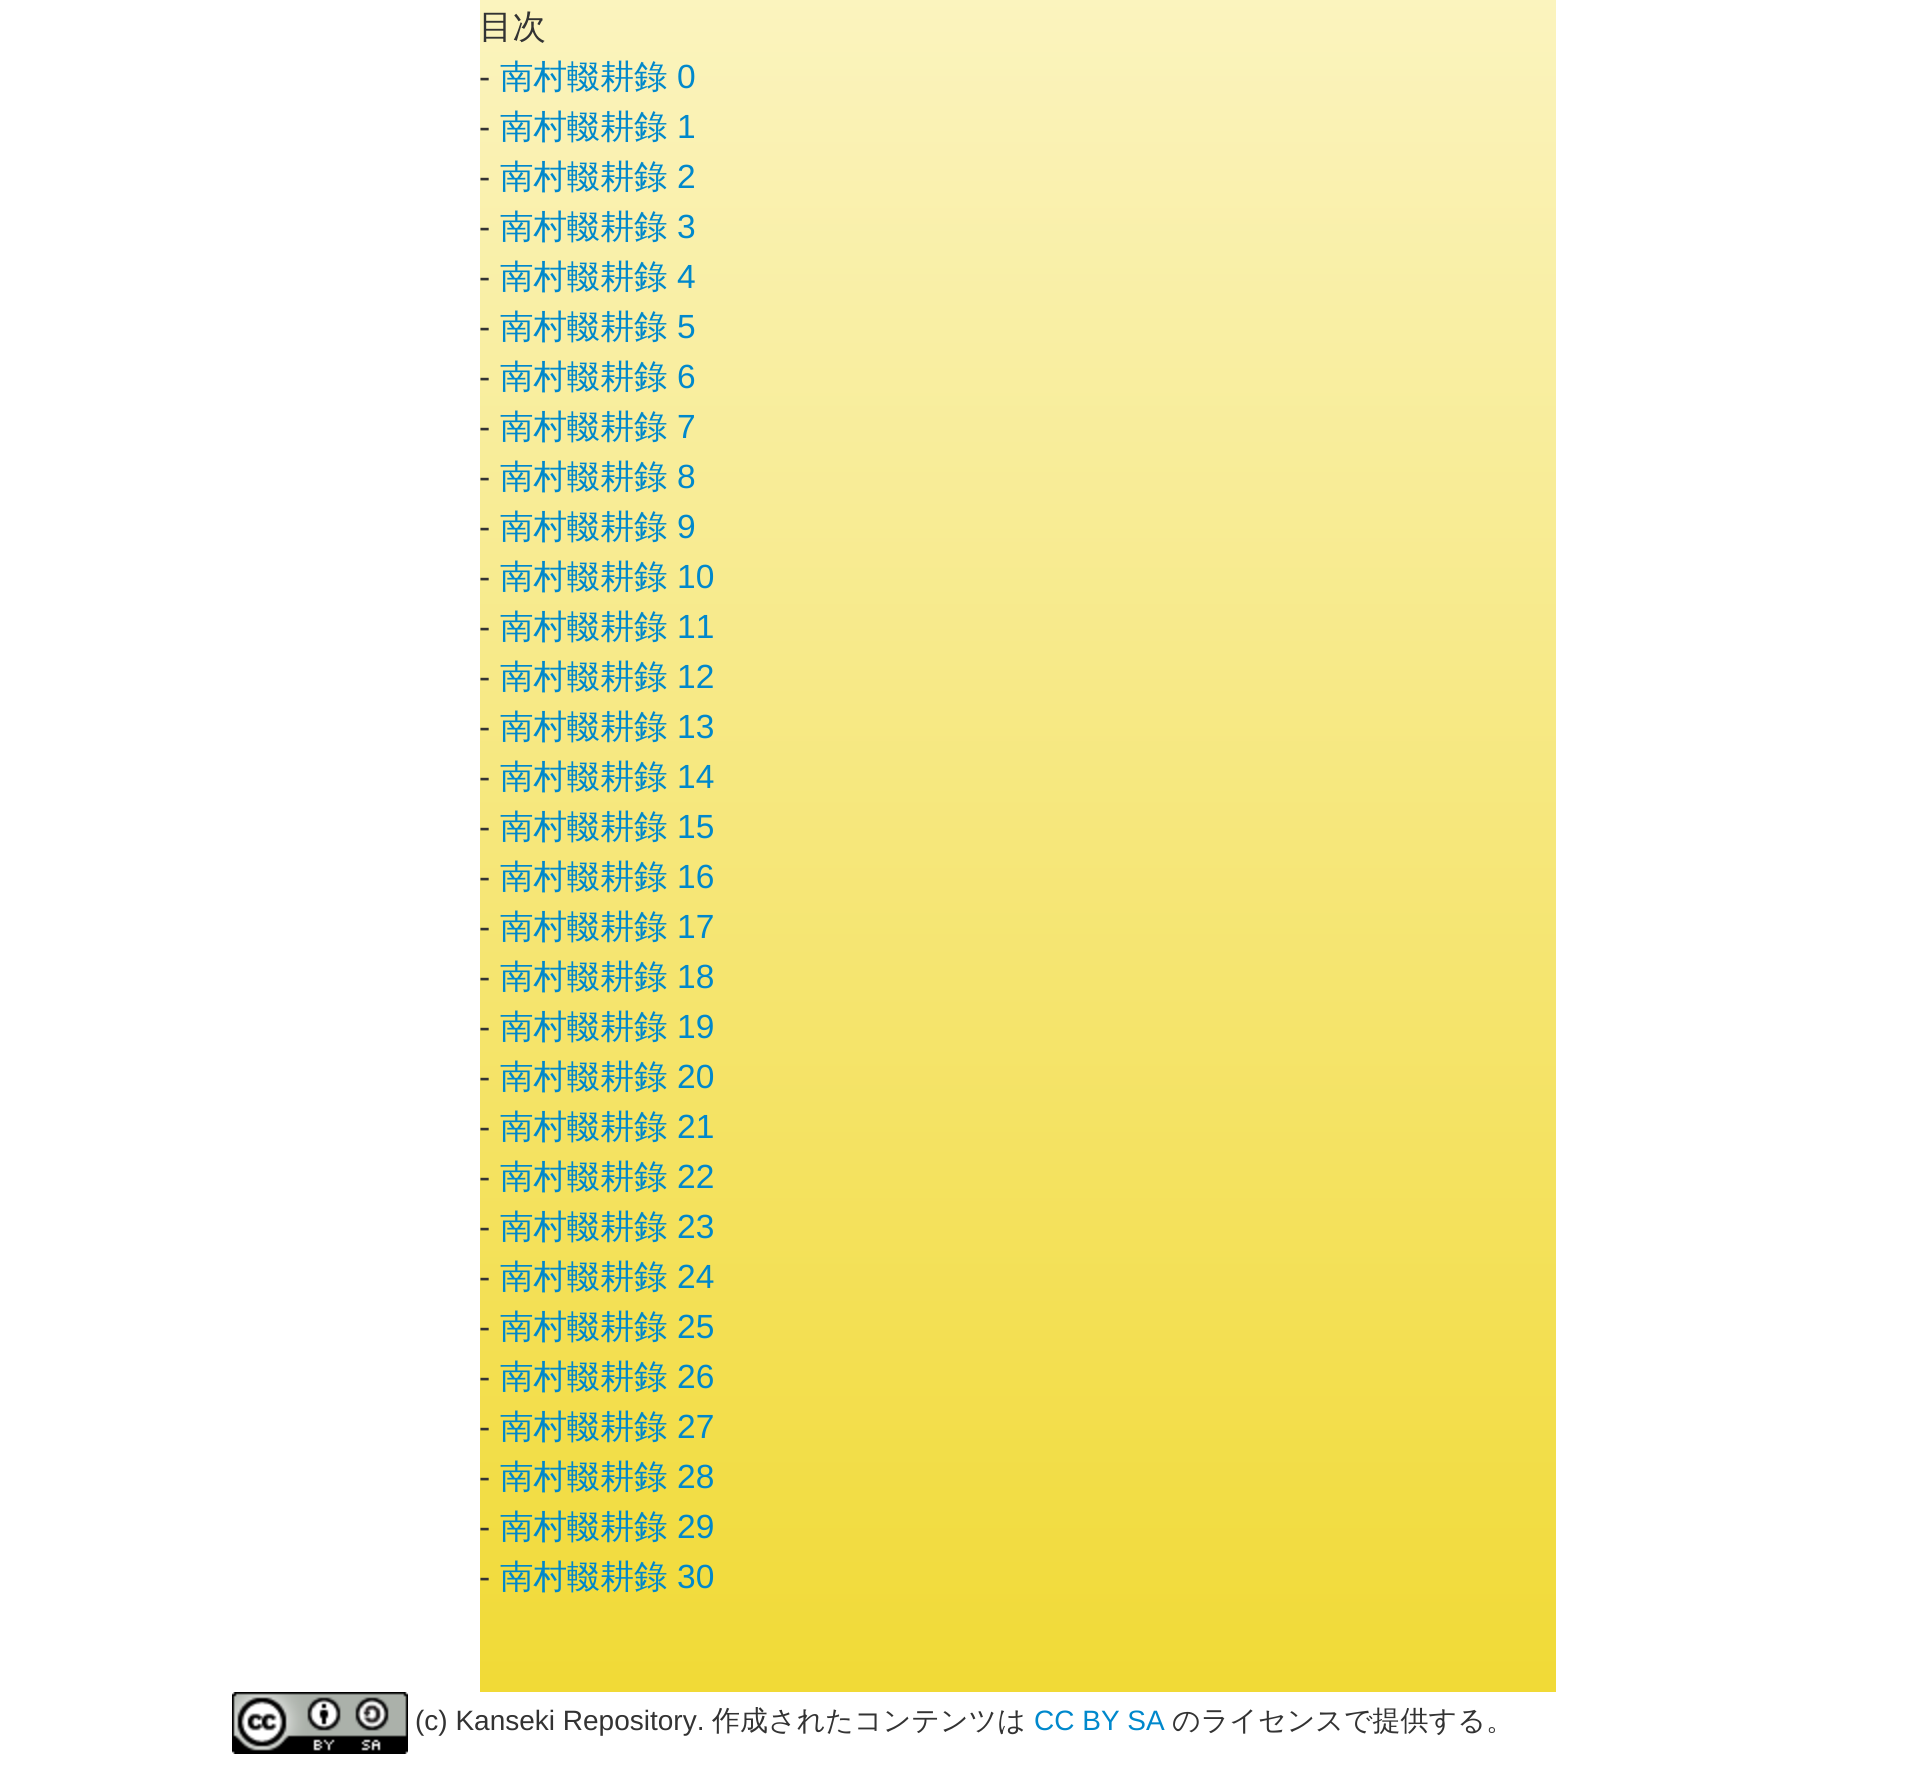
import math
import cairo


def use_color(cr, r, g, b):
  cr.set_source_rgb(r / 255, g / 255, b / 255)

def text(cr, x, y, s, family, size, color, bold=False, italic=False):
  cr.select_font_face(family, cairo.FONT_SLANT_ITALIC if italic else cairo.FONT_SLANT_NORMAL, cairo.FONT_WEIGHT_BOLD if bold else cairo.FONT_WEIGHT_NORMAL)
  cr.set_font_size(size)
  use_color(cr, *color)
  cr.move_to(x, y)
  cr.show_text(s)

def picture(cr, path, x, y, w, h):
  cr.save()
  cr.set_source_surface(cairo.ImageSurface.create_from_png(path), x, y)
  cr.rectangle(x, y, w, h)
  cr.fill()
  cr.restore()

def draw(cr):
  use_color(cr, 255, 255, 255)
  cr.paint()
  gradient = cairo.LinearGradient(1018, -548, 1018, 1692)
  gradient.add_color_stop_rgba(0, 0.996, 0.988, 0.918, 1)
  gradient.add_color_stop_rgba(1, 0.945, 0.855, 0.212, 1)
  cr.set_source(gradient)
  cr.rectangle(480, 0, 1076, 1692)
  cr.fill()
  picture(cr, "img_01.png", 232, 1692, 176, 62)
  text(cr, 479, 38, "目次", "WenQuanYi Zen Hei Medium", 33.5, (51, 51, 51))
  text(cr, 479, 88, "-", "Liberation Sans", 33.5, (51, 51, 51))
  text(cr, 500, 88, "南村輟耕錄", "WenQuanYi Zen Hei Medium", 33.5, (0, 136, 204))
  text(cr, 677, 88, "0", "Liberation Sans", 33.5, (0, 136, 204))
  text(cr, 479, 138, "-", "Liberation Sans", 33.5, (51, 51, 51))
  text(cr, 500, 138, "南村輟耕錄", "WenQuanYi Zen Hei Medium", 33.5, (0, 136, 204))
  text(cr, 677, 138, "1", "Liberation Sans", 33.5, (0, 136, 204))
  text(cr, 479, 188, "-", "Liberation Sans", 33.5, (51, 51, 51))
  text(cr, 500, 188, "南村輟耕錄", "WenQuanYi Zen Hei Medium", 33.5, (0, 136, 204))
  text(cr, 677, 188, "2", "Liberation Sans", 33.5, (0, 136, 204))
  text(cr, 479, 238, "-", "Liberation Sans", 33.5, (51, 51, 51))
  text(cr, 500, 238, "南村輟耕錄", "WenQuanYi Zen Hei Medium", 33.5, (0, 136, 204))
  text(cr, 677, 238, "3", "Liberation Sans", 33.5, (0, 136, 204))
  text(cr, 479, 288, "-", "Liberation Sans", 33.5, (51, 51, 51))
  text(cr, 500, 288, "南村輟耕錄", "WenQuanYi Zen Hei Medium", 33.5, (0, 136, 204))
  text(cr, 677, 288, "4", "Liberation Sans", 33.5, (0, 136, 204))
  text(cr, 479, 338, "-", "Liberation Sans", 33.5, (51, 51, 51))
  text(cr, 500, 338, "南村輟耕錄", "WenQuanYi Zen Hei Medium", 33.5, (0, 136, 204))
  text(cr, 677, 338, "5", "Liberation Sans", 33.5, (0, 136, 204))
  text(cr, 479, 388, "-", "Liberation Sans", 33.5, (51, 51, 51))
  text(cr, 500, 388, "南村輟耕錄", "WenQuanYi Zen Hei Medium", 33.5, (0, 136, 204))
  text(cr, 677, 388, "6", "Liberation Sans", 33.5, (0, 136, 204))
  text(cr, 479, 438, "-", "Liberation Sans", 33.5, (51, 51, 51))
  text(cr, 500, 438, "南村輟耕錄", "WenQuanYi Zen Hei Medium", 33.5, (0, 136, 204))
  text(cr, 677, 438, "7", "Liberation Sans", 33.5, (0, 136, 204))
  text(cr, 479, 488, "-", "Liberation Sans", 33.5, (51, 51, 51))
  text(cr, 500, 488, "南村輟耕錄", "WenQuanYi Zen Hei Medium", 33.5, (0, 136, 204))
  text(cr, 677, 488, "8", "Liberation Sans", 33.5, (0, 136, 204))
  text(cr, 479, 538, "-", "Liberation Sans", 33.5, (51, 51, 51))
  text(cr, 500, 538, "南村輟耕錄", "WenQuanYi Zen Hei Medium", 33.5, (0, 136, 204))
  text(cr, 677, 538, "9", "Liberation Sans", 33.5, (0, 136, 204))
  text(cr, 479, 588, "-", "Liberation Sans", 33.5, (51, 51, 51))
  text(cr, 500, 588, "南村輟耕錄", "WenQuanYi Zen Hei Medium", 33.5, (0, 136, 204))
  text(cr, 677, 588, "10", "Liberation Sans", 33.5, (0, 136, 204))
  text(cr, 479, 638, "-", "Liberation Sans", 33.5, (51, 51, 51))
  text(cr, 500, 638, "南村輟耕錄", "WenQuanYi Zen Hei Medium", 33.5, (0, 136, 204))
  text(cr, 677, 638, "11", "Liberation Sans", 33.5, (0, 136, 204))
  text(cr, 479, 688, "-", "Liberation Sans", 33.5, (51, 51, 51))
  text(cr, 500, 688, "南村輟耕錄", "WenQuanYi Zen Hei Medium", 33.5, (0, 136, 204))
  text(cr, 677, 688, "12", "Liberation Sans", 33.5, (0, 136, 204))
  text(cr, 479, 738, "-", "Liberation Sans", 33.5, (51, 51, 51))
  text(cr, 500, 738, "南村輟耕錄", "WenQuanYi Zen Hei Medium", 33.5, (0, 136, 204))
  text(cr, 677, 738, "13", "Liberation Sans", 33.5, (0, 136, 204))
  text(cr, 479, 788, "-", "Liberation Sans", 33.5, (51, 51, 51))
  text(cr, 500, 788, "南村輟耕錄", "WenQuanYi Zen Hei Medium", 33.5, (0, 136, 204))
  text(cr, 677, 788, "14", "Liberation Sans", 33.5, (0, 136, 204))
  text(cr, 479, 838, "-", "Liberation Sans", 33.5, (51, 51, 51))
  text(cr, 500, 838, "南村輟耕錄", "WenQuanYi Zen Hei Medium", 33.5, (0, 136, 204))
  text(cr, 677, 838, "15", "Liberation Sans", 33.5, (0, 136, 204))
  text(cr, 479, 888, "-", "Liberation Sans", 33.5, (51, 51, 51))
  text(cr, 500, 888, "南村輟耕錄", "WenQuanYi Zen Hei Medium", 33.5, (0, 136, 204))
  text(cr, 677, 888, "16", "Liberation Sans", 33.5, (0, 136, 204))
  text(cr, 479, 938, "-", "Liberation Sans", 33.5, (51, 51, 51))
  text(cr, 500, 938, "南村輟耕錄", "WenQuanYi Zen Hei Medium", 33.5, (0, 136, 204))
  text(cr, 677, 938, "17", "Liberation Sans", 33.5, (0, 136, 204))
  text(cr, 479, 988, "-", "Liberation Sans", 33.5, (51, 51, 51))
  text(cr, 500, 988, "南村輟耕錄", "WenQuanYi Zen Hei Medium", 33.5, (0, 136, 204))
  text(cr, 677, 988, "18", "Liberation Sans", 33.5, (0, 136, 204))
  text(cr, 479, 1038, "-", "Liberation Sans", 33.5, (51, 51, 51))
  text(cr, 500, 1038, "南村輟耕錄", "WenQuanYi Zen Hei Medium", 33.5, (0, 136, 204))
  text(cr, 677, 1038, "19", "Liberation Sans", 33.5, (0, 136, 204))
  text(cr, 479, 1088, "-", "Liberation Sans", 33.5, (51, 51, 51))
  text(cr, 500, 1088, "南村輟耕錄", "WenQuanYi Zen Hei Medium", 33.5, (0, 136, 204))
  text(cr, 677, 1088, "20", "Liberation Sans", 33.5, (0, 136, 204))
  text(cr, 479, 1138, "-", "Liberation Sans", 33.5, (51, 51, 51))
  text(cr, 500, 1138, "南村輟耕錄", "WenQuanYi Zen Hei Medium", 33.5, (0, 136, 204))
  text(cr, 677, 1138, "21", "Liberation Sans", 33.5, (0, 136, 204))
  text(cr, 479, 1188, "-", "Liberation Sans", 33.5, (51, 51, 51))
  text(cr, 500, 1188, "南村輟耕錄", "WenQuanYi Zen Hei Medium", 33.5, (0, 136, 204))
  text(cr, 677, 1188, "22", "Liberation Sans", 33.5, (0, 136, 204))
  text(cr, 479, 1238, "-", "Liberation Sans", 33.5, (51, 51, 51))
  text(cr, 500, 1238, "南村輟耕錄", "WenQuanYi Zen Hei Medium", 33.5, (0, 136, 204))
  text(cr, 677, 1238, "23", "Liberation Sans", 33.5, (0, 136, 204))
  text(cr, 479, 1288, "-", "Liberation Sans", 33.5, (51, 51, 51))
  text(cr, 500, 1288, "南村輟耕錄", "WenQuanYi Zen Hei Medium", 33.5, (0, 136, 204))
  text(cr, 677, 1288, "24", "Liberation Sans", 33.5, (0, 136, 204))
  text(cr, 479, 1338, "-", "Liberation Sans", 33.5, (51, 51, 51))
  text(cr, 500, 1338, "南村輟耕錄", "WenQuanYi Zen Hei Medium", 33.5, (0, 136, 204))
  text(cr, 677, 1338, "25", "Liberation Sans", 33.5, (0, 136, 204))
  text(cr, 479, 1388, "-", "Liberation Sans", 33.5, (51, 51, 51))
  text(cr, 500, 1388, "南村輟耕錄", "WenQuanYi Zen Hei Medium", 33.5, (0, 136, 204))
  text(cr, 677, 1388, "26", "Liberation Sans", 33.5, (0, 136, 204))
  text(cr, 479, 1438, "-", "Liberation Sans", 33.5, (51, 51, 51))
  text(cr, 500, 1438, "南村輟耕錄", "WenQuanYi Zen Hei Medium", 33.5, (0, 136, 204))
  text(cr, 677, 1438, "27", "Liberation Sans", 33.5, (0, 136, 204))
  text(cr, 479, 1488, "-", "Liberation Sans", 33.5, (51, 51, 51))
  text(cr, 500, 1488, "南村輟耕錄", "WenQuanYi Zen Hei Medium", 33.5, (0, 136, 204))
  text(cr, 677, 1488, "28", "Liberation Sans", 33.5, (0, 136, 204))
  text(cr, 479, 1538, "-", "Liberation Sans", 33.5, (51, 51, 51))
  text(cr, 500, 1538, "南村輟耕錄", "WenQuanYi Zen Hei Medium", 33.5, (0, 136, 204))
  text(cr, 677, 1538, "29", "Liberation Sans", 33.5, (0, 136, 204))
  text(cr, 479, 1588, "-", "Liberation Sans", 33.5, (51, 51, 51))
  text(cr, 500, 1588, "南村輟耕錄", "WenQuanYi Zen Hei Medium", 33.5, (0, 136, 204))
  text(cr, 677, 1588, "30", "Liberation Sans", 33.5, (0, 136, 204))
  text(cr, 415, 1730, "(c) Kanseki Repository.", "Liberation Sans", 28, (51, 51, 51))
  text(cr, 712, 1730, "作成されたコンテンツは", "WenQuanYi Zen Hei Medium", 28, (51, 51, 51))
  text(cr, 1034, 1730, "CC BY SA", "Liberation Sans", 28, (0, 136, 204))
  text(cr, 1172, 1730, "のライセンスで提供する。", "WenQuanYi Zen Hei Medium", 28, (51, 51, 51))


surface = cairo.ImageSurface(cairo.FORMAT_RGB24, 1909, 1773)
cr = cairo.Context(surface)
options = cairo.FontOptions()
options.set_hint_metrics(cairo.HINT_METRICS_OFF)
options.set_hint_style(cairo.HINT_STYLE_NONE)
cr.set_font_options(options)
cr.set_miter_limit(4)
draw(cr)
surface.write_to_png("out.png")
